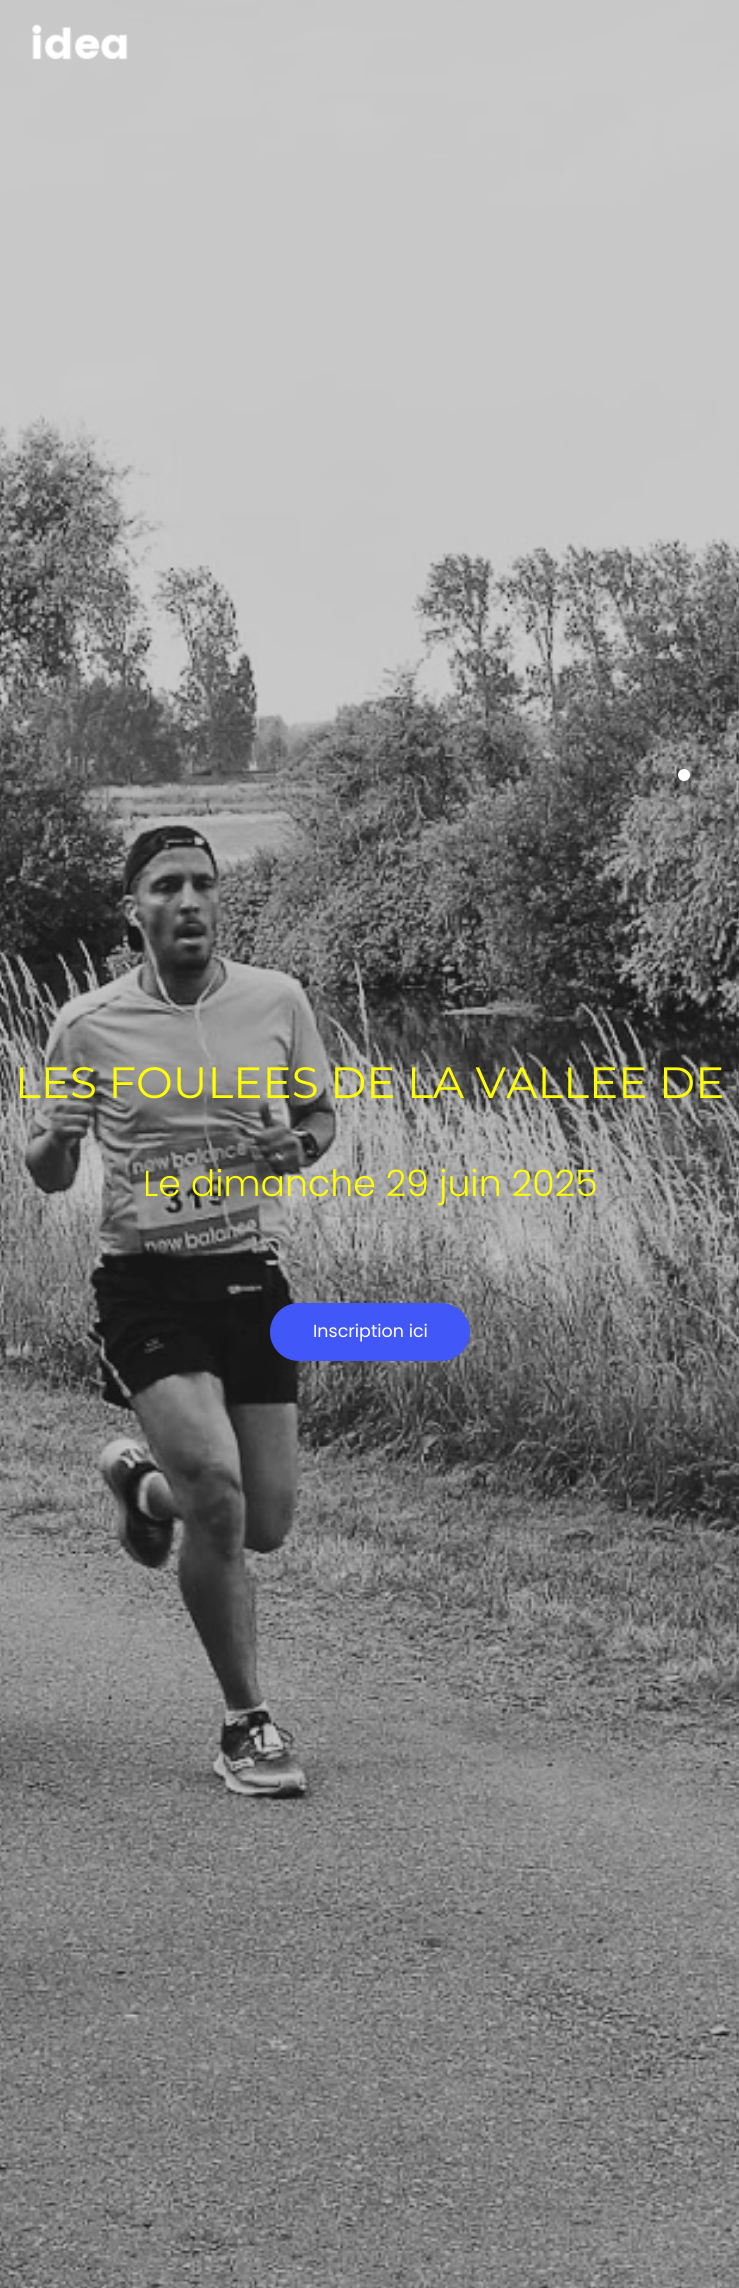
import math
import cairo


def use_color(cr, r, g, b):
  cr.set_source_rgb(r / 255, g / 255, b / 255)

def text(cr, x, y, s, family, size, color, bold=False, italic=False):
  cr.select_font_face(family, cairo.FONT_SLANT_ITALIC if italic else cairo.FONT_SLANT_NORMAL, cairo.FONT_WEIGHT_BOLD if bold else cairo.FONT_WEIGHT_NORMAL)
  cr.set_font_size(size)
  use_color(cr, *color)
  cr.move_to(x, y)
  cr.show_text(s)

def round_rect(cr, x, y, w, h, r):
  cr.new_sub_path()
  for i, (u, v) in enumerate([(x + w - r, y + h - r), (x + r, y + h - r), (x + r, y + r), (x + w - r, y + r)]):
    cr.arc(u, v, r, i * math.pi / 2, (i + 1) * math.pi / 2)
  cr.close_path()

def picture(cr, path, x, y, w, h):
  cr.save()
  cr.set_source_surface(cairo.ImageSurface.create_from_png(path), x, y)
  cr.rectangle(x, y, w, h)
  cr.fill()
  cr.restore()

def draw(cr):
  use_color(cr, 255, 255, 255)
  cr.paint()
  picture(cr, "img_02.png", 0, 0, 739, 2288)
  use_color(cr, 255, 255, 255)
  cr.arc(684, 775, 6, 0, 2 * math.pi)
  cr.fill()
  cr.set_source_rgba(1, 1, 1, 0.2)
  round_rect(cr, 678, 795, 12, 13, 6)
  cr.fill()
  round_rect(cr, 678, 821, 12, 13, 6)
  cr.fill()
  cr.arc(684, 854, 6, 0, 2 * math.pi)
  cr.fill()
  picture(cr, "img_01.png", 32, 24, 96, 36)
  use_color(cr, 65, 87, 248)
  round_rect(cr, 270, 1303, 200, 58, 29)
  cr.fill()
  text(cr, 15, 1098, "LES FOULEES DE LA VALLEE DE", "Montserrat", 43.75, (255, 255, 0))
  text(cr, 143, 1196, "Le dimanche 29 juin 2025", "Poppins Light", 36.25, (255, 255, 0))
  text(cr, 313, 1337, "Inscription ici", "Poppins", 17.5, (255, 255, 255))


surface = cairo.ImageSurface(cairo.FORMAT_RGB24, 739, 2288)
cr = cairo.Context(surface)
options = cairo.FontOptions()
options.set_hint_metrics(cairo.HINT_METRICS_OFF)
options.set_hint_style(cairo.HINT_STYLE_NONE)
cr.set_font_options(options)
cr.set_miter_limit(4)
draw(cr)
surface.write_to_png("out.png")
